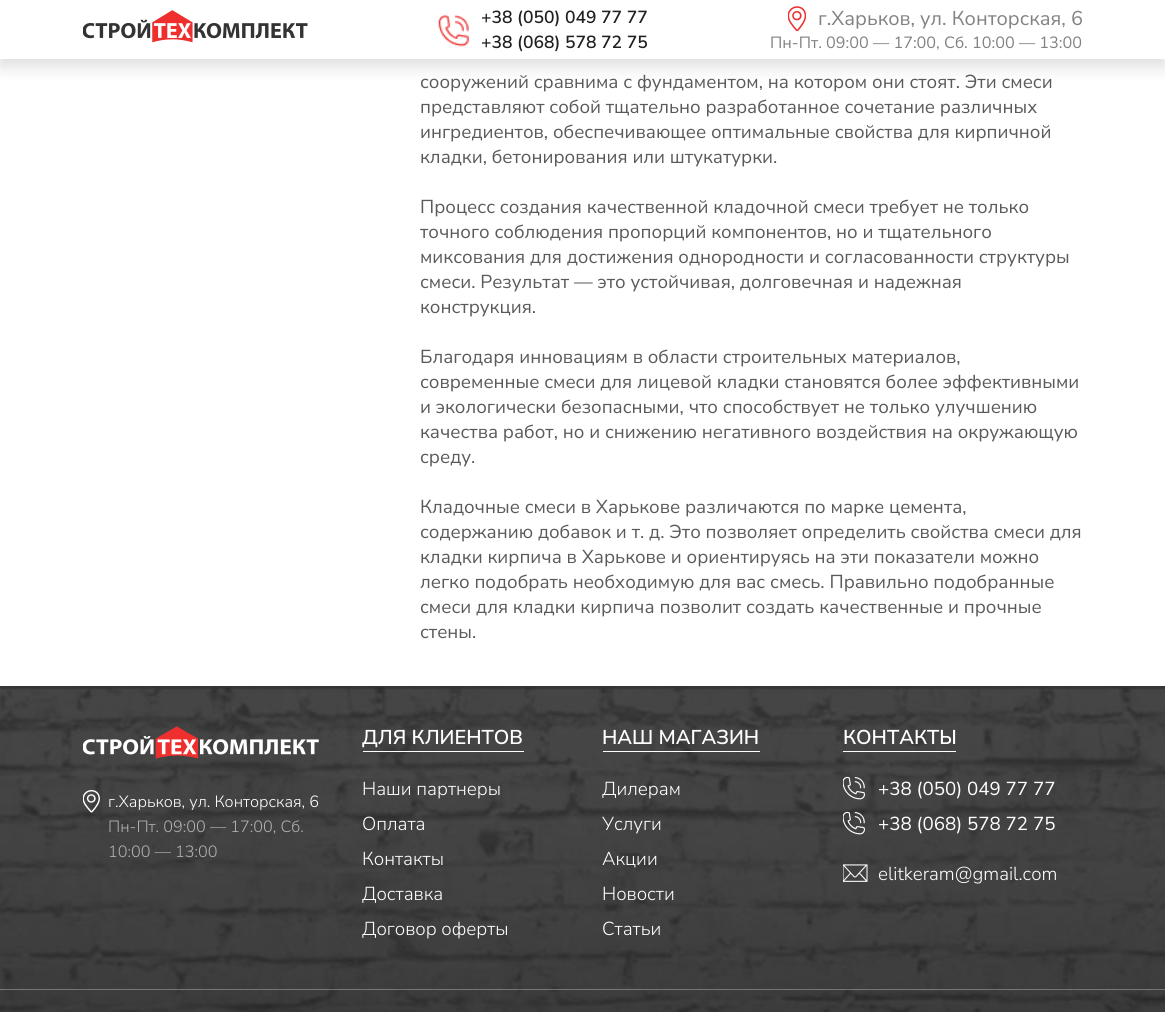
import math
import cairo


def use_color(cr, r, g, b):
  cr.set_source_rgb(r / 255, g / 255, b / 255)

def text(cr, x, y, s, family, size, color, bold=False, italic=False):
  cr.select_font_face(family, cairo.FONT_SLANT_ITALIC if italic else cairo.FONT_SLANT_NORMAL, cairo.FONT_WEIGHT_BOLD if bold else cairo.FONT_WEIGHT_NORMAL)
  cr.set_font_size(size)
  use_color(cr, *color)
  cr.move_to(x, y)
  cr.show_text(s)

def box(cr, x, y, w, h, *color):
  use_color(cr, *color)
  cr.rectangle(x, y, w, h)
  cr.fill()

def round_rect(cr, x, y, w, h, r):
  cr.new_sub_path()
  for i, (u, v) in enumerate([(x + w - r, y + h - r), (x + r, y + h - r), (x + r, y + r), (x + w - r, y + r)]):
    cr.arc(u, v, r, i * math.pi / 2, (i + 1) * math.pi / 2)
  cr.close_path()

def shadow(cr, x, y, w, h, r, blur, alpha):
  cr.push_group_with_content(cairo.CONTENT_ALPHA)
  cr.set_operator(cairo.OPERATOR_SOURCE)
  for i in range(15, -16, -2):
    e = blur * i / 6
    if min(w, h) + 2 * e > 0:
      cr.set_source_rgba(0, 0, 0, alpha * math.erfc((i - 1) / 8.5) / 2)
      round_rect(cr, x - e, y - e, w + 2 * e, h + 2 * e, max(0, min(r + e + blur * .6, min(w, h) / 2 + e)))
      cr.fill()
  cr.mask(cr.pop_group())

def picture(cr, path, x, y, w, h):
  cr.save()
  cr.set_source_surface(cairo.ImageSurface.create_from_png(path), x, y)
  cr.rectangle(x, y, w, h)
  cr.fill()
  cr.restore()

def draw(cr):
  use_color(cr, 255, 255, 255)
  cr.paint()
  use_color(cr, 0, 0, 0)
  shadow(cr, 0, 6, 1165, 59, 0, 9.5, 0.15)
  box(cr, 0, 0, 1165, 59, 255, 255, 255)
  picture(cr, "img_01.png", 83, 10, 225, 33)
  picture(cr, "img_02.png", 438, 14, 31, 33)
  picture(cr, "img_03.png", 788, 6, 18, 25)
  picture(cr, "img_04.png", 0, 686, 1165, 326)
  picture(cr, "img_05.png", 83, 726, 236, 33)
  picture(cr, "img_06.png", 83, 790, 17, 23)
  box(cr, 363, 751, 161, 1, 255, 255, 255)
  box(cr, 603, 751, 157, 1, 255, 255, 255)
  box(cr, 843, 751, 113, 1, 255, 255, 255)
  picture(cr, "img_07.png", 843, 776, 22, 24)
  picture(cr, "img_08.png", 843, 811, 22, 24)
  picture(cr, "img_09.png", 843, 864, 25, 18)
  cr.set_source_rgba(1, 1, 1, 0.3)
  cr.rectangle(0, 989, 1165, 1)
  cr.fill()
  text(cr, 481, 23, "+38 (050) 049 77 77", "Nunito Sans SemiBold", 17.5, (32, 32, 32))
  text(cr, 481, 48, "+38 (068) 578 72 75", "Nunito Sans SemiBold", 17.5, (32, 32, 32))
  text(cr, 818, 25, "г.Харьков, ул. Конторская, 6", "Nunito Sans", 20, (130, 130, 130))
  text(cr, 770, 48, "Пн-Пт. 09:00 — 17:00, Сб. 10:00 — 13:00", "Nunito Sans", 16.25, (130, 130, 130))
  text(cr, 420, 88, "сооружений сравнима с фундаментом, на котором они стоят. Эти смеси", "Nunito Sans", 18.75, (90, 90, 90))
  text(cr, 420, 113, "представляют собой тщательно разработанное сочетание различных", "Nunito Sans", 18.75, (90, 90, 90))
  text(cr, 420, 138, "ингредиентов, обеспечивающее оптимальные свойства для кирпичной", "Nunito Sans", 18.75, (90, 90, 90))
  text(cr, 420, 163, "кладки, бетонирования или штукатурки.", "Nunito Sans", 18.75, (90, 90, 90))
  text(cr, 420, 213, "Процесс создания качественной кладочной смеси требует не только", "Nunito Sans", 18.75, (90, 90, 90))
  text(cr, 420, 238, "точного соблюдения пропорций компонентов, но и тщательного", "Nunito Sans", 18.75, (90, 90, 90))
  text(cr, 420, 263, "миксования для достижения однородности и согласованности структуры", "Nunito Sans", 18.75, (90, 90, 90))
  text(cr, 420, 288, "смеси. Результат — это устойчивая, долговечная и надежная", "Nunito Sans", 18.75, (90, 90, 90))
  text(cr, 420, 313, "конструкция.", "Nunito Sans", 18.75, (90, 90, 90))
  text(cr, 420, 363, "Благодаря инновациям в области строительных материалов,", "Nunito Sans", 18.75, (90, 90, 90))
  text(cr, 420, 388, "современные смеси для лицевой кладки становятся более эффективными", "Nunito Sans", 18.75, (90, 90, 90))
  text(cr, 420, 413, "и экологически безопасными, что способствует не только улучшению", "Nunito Sans", 18.75, (90, 90, 90))
  text(cr, 420, 438, "качества работ, но и снижению негативного воздействия на окружающую", "Nunito Sans", 18.75, (90, 90, 90))
  text(cr, 420, 463, "среду.", "Nunito Sans", 18.75, (90, 90, 90))
  text(cr, 420, 513, "Кладочные смеси в Харькове различаются по марке цемента,", "Nunito Sans", 18.75, (90, 90, 90))
  text(cr, 420, 538, "содержанию добавок и т. д. Это позволяет определить свойства смеси для", "Nunito Sans", 18.75, (90, 90, 90))
  text(cr, 420, 563, "кладки кирпича в Харькове и ориентируясь на эти показатели можно", "Nunito Sans", 18.75, (90, 90, 90))
  text(cr, 420, 588, "легко подобрать необходимую для вас смесь. Правильно подобранные", "Nunito Sans", 18.75, (90, 90, 90))
  text(cr, 420, 613, "смеси для кладки кирпича позволит создать качественные и прочные", "Nunito Sans", 18.75, (90, 90, 90))
  text(cr, 420, 638, "стены.", "Nunito Sans", 18.75, (90, 90, 90))
  text(cr, 108, 807, "г.Харьков, ул. Конторская, 6", "Nunito Sans Light", 16.25, (255, 255, 255))
  text(cr, 108, 832, "Пн-Пт. 09:00 — 17:00, Сб.", "Nunito Sans Light", 16.25, (176, 176, 176))
  text(cr, 108, 857, "10:00 — 13:00", "Nunito Sans Light", 16.25, (176, 176, 176))
  text(cr, 362, 744, "ДЛЯ КЛИЕНТОВ", "Nunito Sans SemiBold", 20, (255, 255, 255))
  text(cr, 362, 795, "Наши партнеры", "Nunito Sans Light", 18.75, (255, 255, 255))
  text(cr, 362, 830, "Оплата", "Nunito Sans Light", 18.75, (255, 255, 255))
  text(cr, 362, 865, "Контакты", "Nunito Sans Light", 18.75, (255, 255, 255))
  text(cr, 362, 900, "Доставка", "Nunito Sans Light", 18.75, (255, 255, 255))
  text(cr, 362, 935, "Договор оферты", "Nunito Sans Light", 18.75, (255, 255, 255))
  text(cr, 602, 744, "НАШ МАГАЗИН", "Nunito Sans SemiBold", 20, (255, 255, 255))
  text(cr, 602, 795, "Дилерам", "Nunito Sans Light", 18.75, (255, 255, 255))
  text(cr, 602, 830, "Услуги", "Nunito Sans Light", 18.75, (255, 255, 255))
  text(cr, 602, 865, "Акции", "Nunito Sans Light", 18.75, (255, 255, 255))
  text(cr, 602, 900, "Новости", "Nunito Sans Light", 18.75, (255, 255, 255))
  text(cr, 602, 935, "Статьи", "Nunito Sans Light", 18.75, (255, 255, 255))
  text(cr, 843, 744, "КОНТАКТЫ", "Nunito Sans SemiBold", 20, (255, 255, 255))
  text(cr, 878, 795, "+38 (050) 049 77 77", "Nunito Sans", 18.75, (255, 255, 255))
  text(cr, 878, 830, "+38 (068) 578 72 75", "Nunito Sans", 18.75, (255, 255, 255))
  text(cr, 878, 880, "elitkeram@gmail.com", "Nunito Sans Light", 18.75, (255, 255, 255))


surface = cairo.ImageSurface(cairo.FORMAT_RGB24, 1165, 1012)
cr = cairo.Context(surface)
options = cairo.FontOptions()
options.set_hint_metrics(cairo.HINT_METRICS_OFF)
options.set_hint_style(cairo.HINT_STYLE_NONE)
cr.set_font_options(options)
cr.set_miter_limit(4)
draw(cr)
surface.write_to_png("out.png")
